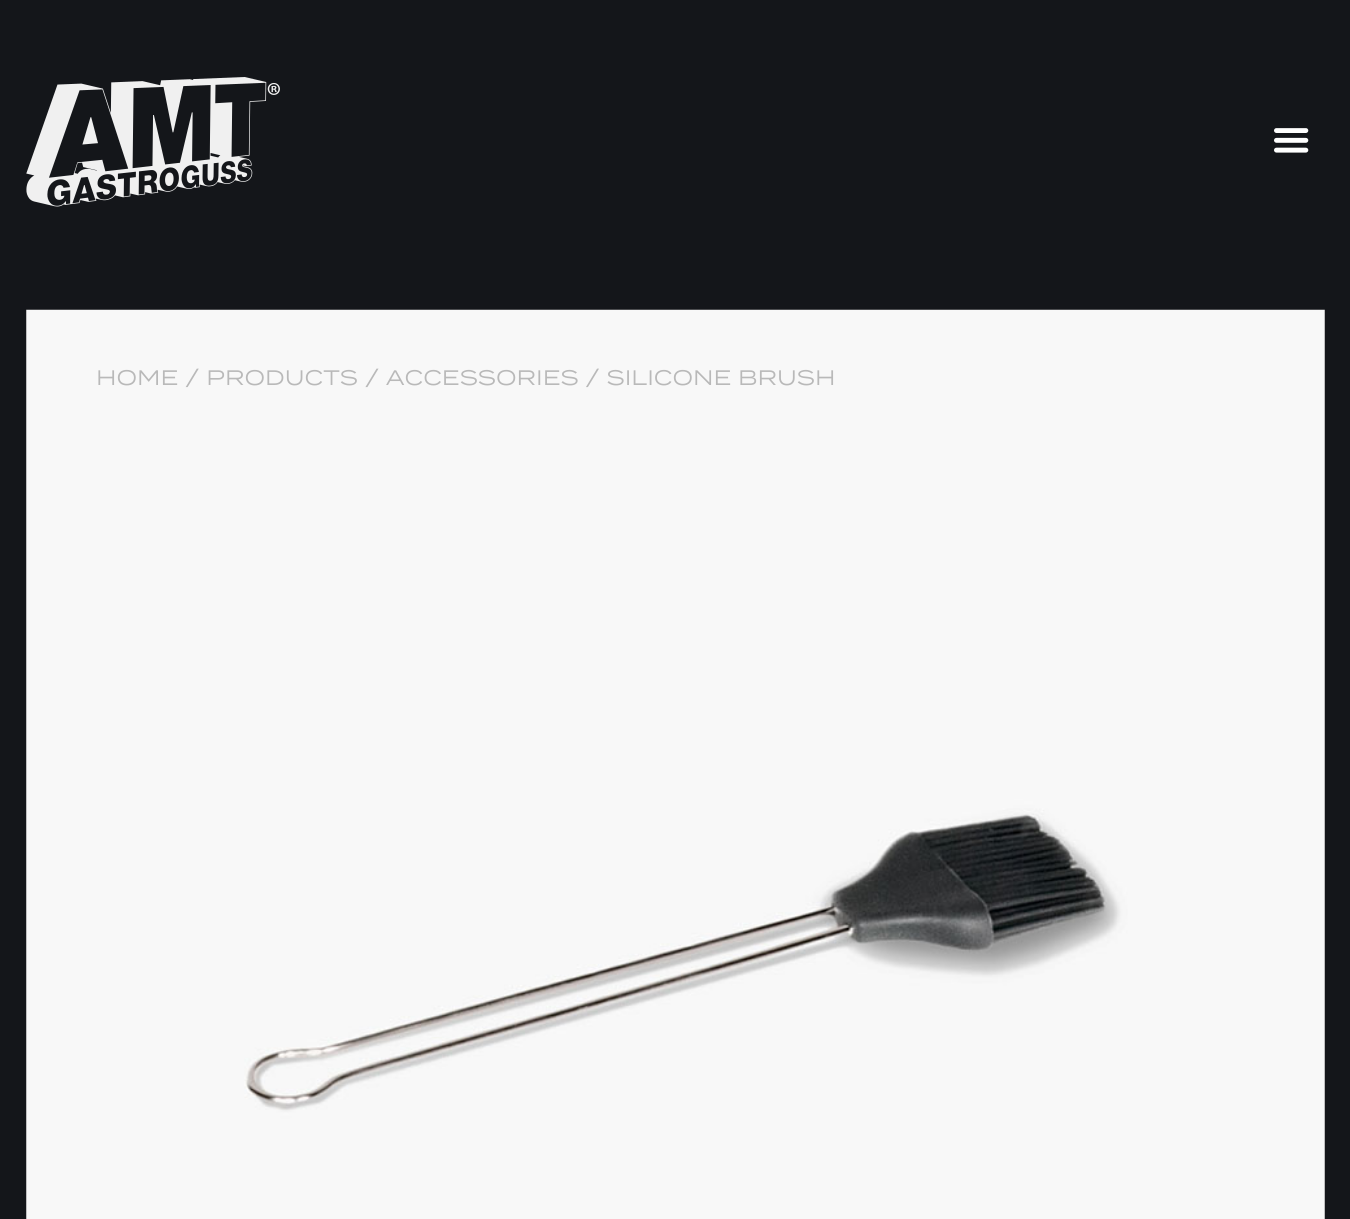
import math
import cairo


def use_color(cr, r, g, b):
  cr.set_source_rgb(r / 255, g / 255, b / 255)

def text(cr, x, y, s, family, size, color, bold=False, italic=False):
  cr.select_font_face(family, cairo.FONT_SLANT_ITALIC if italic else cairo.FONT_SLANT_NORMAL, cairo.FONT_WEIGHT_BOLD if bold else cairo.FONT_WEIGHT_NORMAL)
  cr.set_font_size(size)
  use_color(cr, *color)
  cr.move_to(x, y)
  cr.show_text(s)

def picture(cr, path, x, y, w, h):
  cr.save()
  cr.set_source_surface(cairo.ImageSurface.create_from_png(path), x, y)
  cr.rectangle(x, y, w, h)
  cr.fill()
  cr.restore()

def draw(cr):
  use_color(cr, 20, 22, 26)
  cr.paint()
  picture(cr, "img_01.png", 26, 77, 254, 130)
  picture(cr, "img_02.png", 1274, 128, 35, 25)
  picture(cr, "img_03.png", 26, 309, 1299, 910)
  text(cr, 96, 385, "HOME / PRODUCTS / ACCESSORIES / SILICONE BRUSH", "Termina", 21, (185, 185, 185))


surface = cairo.ImageSurface(cairo.FORMAT_RGB24, 1350, 1219)
cr = cairo.Context(surface)
options = cairo.FontOptions()
options.set_hint_metrics(cairo.HINT_METRICS_OFF)
options.set_hint_style(cairo.HINT_STYLE_NONE)
cr.set_font_options(options)
cr.set_miter_limit(4)
draw(cr)
surface.write_to_png("out.png")
